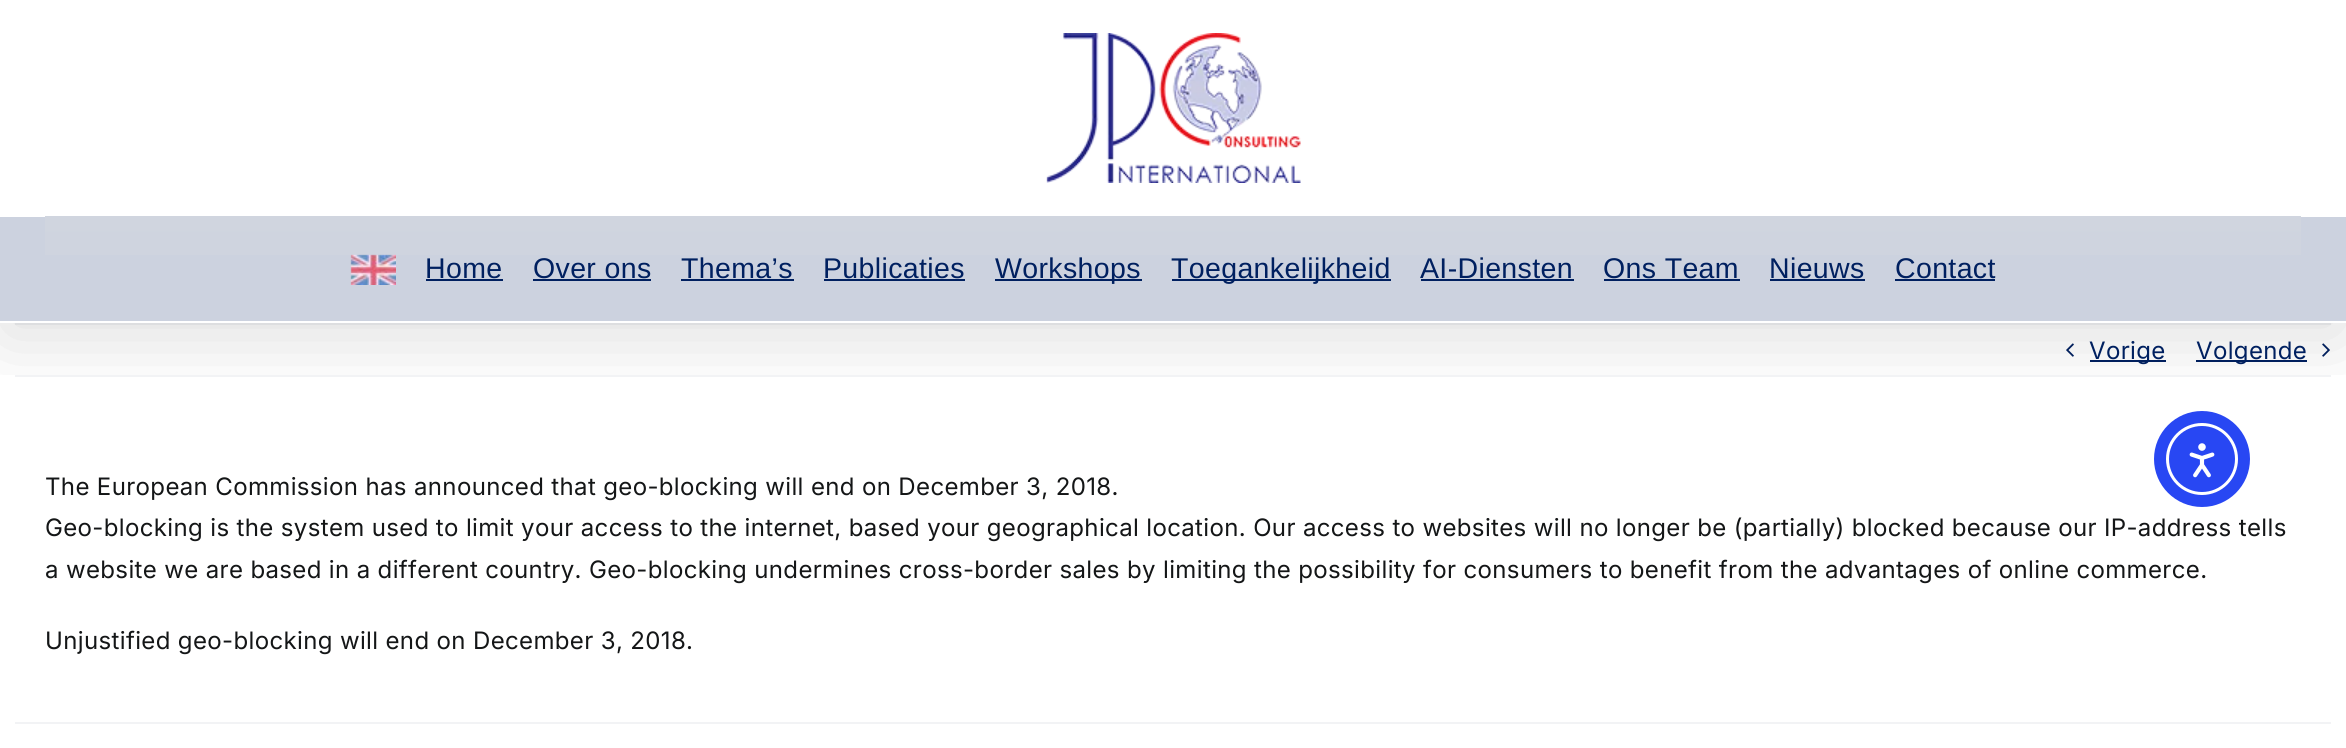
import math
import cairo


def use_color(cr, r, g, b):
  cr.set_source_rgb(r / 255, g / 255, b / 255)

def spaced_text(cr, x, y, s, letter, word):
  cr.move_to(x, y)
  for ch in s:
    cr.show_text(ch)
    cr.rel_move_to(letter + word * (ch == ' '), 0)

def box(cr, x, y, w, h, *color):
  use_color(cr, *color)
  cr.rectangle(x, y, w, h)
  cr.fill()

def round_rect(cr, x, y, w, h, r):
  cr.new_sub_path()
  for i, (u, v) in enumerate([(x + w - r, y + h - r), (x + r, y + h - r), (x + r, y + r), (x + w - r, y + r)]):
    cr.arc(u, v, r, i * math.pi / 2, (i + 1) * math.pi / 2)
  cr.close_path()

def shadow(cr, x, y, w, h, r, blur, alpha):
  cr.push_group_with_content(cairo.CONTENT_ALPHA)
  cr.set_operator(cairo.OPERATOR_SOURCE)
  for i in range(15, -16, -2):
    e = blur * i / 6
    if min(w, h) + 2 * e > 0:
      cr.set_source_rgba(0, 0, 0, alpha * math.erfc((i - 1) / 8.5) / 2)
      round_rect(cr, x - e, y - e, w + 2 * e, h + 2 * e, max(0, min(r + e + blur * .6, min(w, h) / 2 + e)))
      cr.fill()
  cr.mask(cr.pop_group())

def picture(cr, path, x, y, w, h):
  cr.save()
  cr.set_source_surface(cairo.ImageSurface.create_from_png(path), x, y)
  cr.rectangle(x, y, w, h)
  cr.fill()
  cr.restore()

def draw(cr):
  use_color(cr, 255, 255, 255)
  cr.paint()
  box(cr, 15, 323, 2316, 2, 242, 243, 245)
  box(cr, 15, 375, 2316, 2, 242, 243, 245)
  picture(cr, "img_03.png", 2066, 343, 8, 14)
  box(cr, 2090, 360, 76, 2, 0, 32, 96)
  box(cr, 2196, 360, 111, 2, 0, 32, 96)
  picture(cr, "img_04.png", 2322, 343, 8, 14)
  cr.save()
  cr.rectangle(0, 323, 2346, 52)
  cr.clip()
  use_color(cr, 0, 0, 0)
  shadow(cr, 3, 18, 2340, 317, 0, 37.5, 0.14)
  cr.restore()
  picture(cr, "img_01.png", 1046, 33, 255, 150)
  box(cr, 0, 217, 2346, 104, 204, 210, 223)
  box(cr, 0, 322, 2346, 1, 255, 255, 255)
  gradient = cairo.LinearGradient(1173, 216, 1173, 321)
  gradient.add_color_stop_rgba(0, 0.816, 0.835, 0.875, 1)
  gradient.add_color_stop_rgba(1, 0.8, 0.824, 0.875, 1)
  cr.set_source(gradient)
  cr.rectangle(45, 216, 2256, 39)
  cr.fill()
  picture(cr, "img_02.png", 350, 254, 46, 31)
  box(cr, 426, 279, 77, 2, 0, 32, 96)
  box(cr, 533, 279, 118, 2, 0, 32, 96)
  box(cr, 681, 279, 113, 2, 0, 32, 96)
  box(cr, 824, 279, 141, 2, 0, 32, 96)
  box(cr, 995, 279, 147, 2, 0, 32, 96)
  box(cr, 1172, 279, 219, 2, 0, 32, 96)
  box(cr, 1421, 279, 153, 2, 0, 32, 96)
  box(cr, 1604, 279, 136, 2, 0, 32, 96)
  box(cr, 1770, 279, 95, 2, 0, 32, 96)
  box(cr, 1895, 279, 100, 2, 0, 32, 96)
  box(cr, 15, 722, 2316, 2, 242, 243, 245)
  use_color(cr, 40, 71, 243)
  cr.arc(2202, 459, 48, 0, 2 * math.pi)
  cr.fill()
  cr.arc(2202, 459, 34.5, 0, 2 * math.pi)
  use_color(cr, 255, 255, 255)
  cr.set_line_width(3)
  cr.stroke()
  picture(cr, "img_05.png", 2189, 443, 26, 35)
  cr.select_font_face("Liberation Sans")
  cr.set_font_size(28.5)
  use_color(cr, 0, 32, 96)
  spaced_text(cr, 425, 278, "Home", 0.36, 0)
  spaced_text(cr, 533, 278, "Over ons", 0.36, 0)
  spaced_text(cr, 681, 278, "Thema’s", 0.36, 0)
  spaced_text(cr, 823, 278, "Publicaties", 0.36, 0)
  spaced_text(cr, 995, 278, "Workshops", 0.36, 0)
  spaced_text(cr, 1171, 278, "Toegankelijkheid", 0.36, 0)
  spaced_text(cr, 1420, 278, "AI-Diensten", 0.36, 0)
  spaced_text(cr, 1603, 278, "Ons Team", 0.36, 0)
  spaced_text(cr, 1769, 278, "Nieuws", 0.36, 0)
  spaced_text(cr, 1895, 278, "Contact", 0.36, 0)
  cr.select_font_face("Inter")
  cr.set_font_size(24)
  spaced_text(cr, 2089, 359, "Vorige", 0.36, 0)
  spaced_text(cr, 2196, 359, "Volgende", 0.36, 0)
  use_color(cr, 20, 22, 23)
  spaced_text(cr, 45, 495, "The European Commission has announced that geo-blocking will end on December 3, 2018.", 0.36, 0)
  spaced_text(cr, 45, 536, "Geo-blocking is the system used to limit your access to the internet, based your geographical location. Our access to websites will no longer be (partially) blocked because our IP-address tells", 0.36, 0)
  spaced_text(cr, 45, 578, "a website we are based in a different country. Geo-blocking undermines cross-border sales by limiting the possibility for consumers to benefit from the advantages of online commerce.", 0.36, 0)
  spaced_text(cr, 45, 649, "Unjustified geo-blocking will end on December 3, 2018.", 0.36, 0)


surface = cairo.ImageSurface(cairo.FORMAT_RGB24, 2346, 748)
cr = cairo.Context(surface)
options = cairo.FontOptions()
options.set_hint_metrics(cairo.HINT_METRICS_OFF)
options.set_hint_style(cairo.HINT_STYLE_NONE)
cr.set_font_options(options)
cr.set_miter_limit(4)
draw(cr)
surface.write_to_png("out.png")
